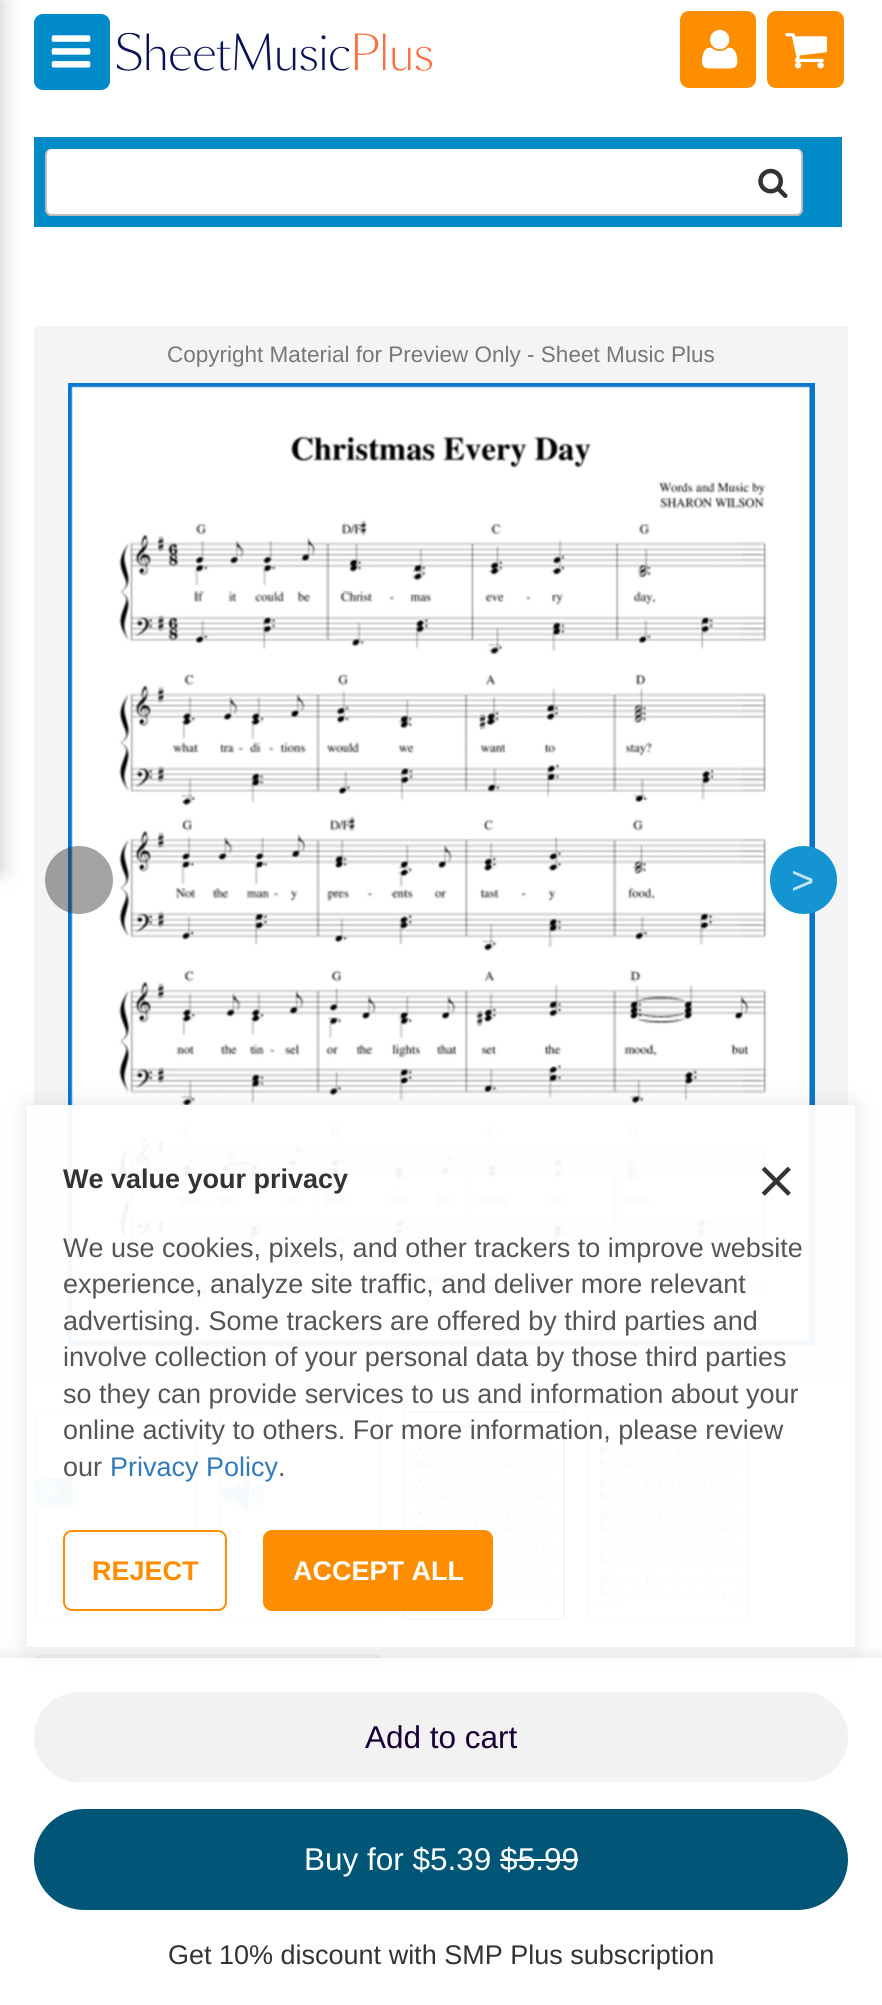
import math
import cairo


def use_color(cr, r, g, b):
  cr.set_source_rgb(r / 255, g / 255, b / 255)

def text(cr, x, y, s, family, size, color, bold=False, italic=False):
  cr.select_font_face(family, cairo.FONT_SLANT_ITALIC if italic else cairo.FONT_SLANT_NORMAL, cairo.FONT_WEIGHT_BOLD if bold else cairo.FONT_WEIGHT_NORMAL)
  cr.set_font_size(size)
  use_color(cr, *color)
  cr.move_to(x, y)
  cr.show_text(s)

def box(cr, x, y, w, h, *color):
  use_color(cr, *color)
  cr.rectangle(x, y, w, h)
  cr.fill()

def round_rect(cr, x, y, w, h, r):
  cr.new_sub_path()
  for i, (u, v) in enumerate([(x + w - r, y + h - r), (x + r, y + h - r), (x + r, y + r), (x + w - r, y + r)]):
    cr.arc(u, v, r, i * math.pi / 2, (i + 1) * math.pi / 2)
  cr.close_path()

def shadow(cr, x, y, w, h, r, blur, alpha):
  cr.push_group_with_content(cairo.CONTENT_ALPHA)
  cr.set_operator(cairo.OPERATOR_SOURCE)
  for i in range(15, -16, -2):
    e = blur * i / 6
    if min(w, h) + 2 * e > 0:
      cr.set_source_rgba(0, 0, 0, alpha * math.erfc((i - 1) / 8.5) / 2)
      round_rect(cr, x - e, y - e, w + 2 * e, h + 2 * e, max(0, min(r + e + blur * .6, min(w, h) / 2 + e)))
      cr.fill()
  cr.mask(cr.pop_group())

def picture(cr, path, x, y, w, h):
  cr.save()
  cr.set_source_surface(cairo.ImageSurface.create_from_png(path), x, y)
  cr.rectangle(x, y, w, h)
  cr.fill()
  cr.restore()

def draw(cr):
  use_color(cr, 255, 255, 255)
  cr.paint()
  use_color(cr, 195, 195, 195)
  shadow(cr, -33, 0, 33, 871, 0, 11, 1)
  use_color(cr, 0, 138, 202)
  round_rect(cr, 35, 15, 74, 74, 8)
  cr.fill_preserve()
  cr.stroke()
  picture(cr, "img_01.png", 51, 35, 40, 33)
  picture(cr, "img_02.png", 117, 32, 315, 39)
  use_color(cr, 255, 141, 0)
  round_rect(cr, 681, 12, 74, 75, 8)
  cr.fill_preserve()
  cr.stroke()
  picture(cr, "img_03.png", 702, 29, 36, 40)
  round_rect(cr, 768, 12, 75, 75, 8)
  cr.fill_preserve()
  cr.stroke()
  picture(cr, "img_04.png", 785, 33, 43, 36)
  box(cr, 34, 137, 808, 90, 0, 139, 200)
  use_color(cr, 255, 255, 255)
  round_rect(cr, 45, 149, 758, 67, 7)
  cr.fill()
  use_color(cr, 188, 188, 188)
  cr.set_fill_rule(cairo.FILL_RULE_EVEN_ODD)
  cr.new_path()
  cr.move_to(52, 148)
  cr.line_to(796, 148)
  cr.curve_to(800, 148, 803, 152, 803, 155)
  cr.line_to(803, 209)
  cr.curve_to(803, 213, 800, 216, 796, 216)
  cr.line_to(52, 216)
  cr.curve_to(48, 216, 45, 213, 45, 209)
  cr.line_to(45, 155)
  cr.curve_to(45, 152, 48, 148, 52, 148)
  cr.close_path()
  cr.move_to(52, 148)
  cr.line_to(796, 148)
  cr.curve_to(799, 148, 801, 152, 801, 155)
  cr.line_to(801, 209)
  cr.curve_to(801, 212, 799, 214, 796, 214)
  cr.line_to(52, 214)
  cr.curve_to(49, 214, 47, 212, 47, 209)
  cr.line_to(47, 155)
  cr.curve_to(47, 152, 49, 148, 52, 148)
  cr.close_path()
  cr.fill()
  picture(cr, "img_05.png", 758, 168, 30, 30)
  box(cr, 34, 326, 814, 1051, 244, 244, 244)
  cr.rectangle(70.5, 385.5, 742, 958)
  use_color(cr, 5, 119, 207)
  cr.set_line_width(5)
  cr.stroke()
  picture(cr, "img_06.png", 71, 386, 739, 956)
  cr.set_source_rgba(0.2, 0.2, 0.2, 0.45)
  cr.arc(79, 880, 34, 0, 2 * math.pi)
  cr.fill()
  use_color(cr, 20, 148, 209)
  round_rect(cr, 770, 846, 67, 68, 33.5)
  cr.fill()
  cr.rectangle(35, 1412, 160, 207)
  use_color(cr, 187, 189, 195)
  cr.set_line_width(2)
  cr.stroke()
  picture(cr, "img_07.png", 36, 1478, 37, 31)
  cr.rectangle(219, 1412, 160, 207)
  cr.stroke()
  picture(cr, "img_08.png", 220, 1478, 44, 32)
  cr.rectangle(404, 1412, 160, 207)
  use_color(cr, 0, 140, 201)
  cr.stroke()
  picture(cr, "img_09.png", 405, 1413, 158, 205)
  cr.rectangle(588, 1412, 160, 207)
  use_color(cr, 187, 189, 195)
  cr.stroke()
  picture(cr, "img_10.png", 589, 1413, 158, 205)
  use_color(cr, 244, 244, 244)
  round_rect(cr, 34, 1654, 349, 54, 9)
  cr.fill()
  use_color(cr, 0, 0, 0)
  shadow(cr, 0, 1663, 882, 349, 0, 11, 0.2)
  box(cr, 0, 1658, 882, 347, 255, 255, 255)
  use_color(cr, 242, 242, 242)
  round_rect(cr, 34, 1692, 814, 90, 45)
  cr.fill()
  use_color(cr, 1, 86, 120)
  round_rect(cr, 34, 1809, 814, 101, 50.5)
  cr.fill()
  box(cr, 500, 1859, 78, 2, 255, 255, 255)
  cr.save()
  cr.new_path()
  cr.move_to(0, 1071)
  cr.line_to(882, 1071)
  cr.line_to(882, 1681)
  cr.line_to(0, 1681)
  cr.close_path()
  cr.move_to(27, 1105)
  cr.line_to(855, 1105)
  cr.line_to(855, 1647)
  cr.line_to(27, 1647)
  cr.close_path()
  cr.clip()
  use_color(cr, 0, 0, 0)
  shadow(cr, 27, 1105, 828, 542, 0, 11, 0.1)
  cr.restore()
  cr.set_source_rgba(1, 1, 1, 0.95)
  cr.rectangle(27, 1105, 828, 542)
  cr.fill()
  picture(cr, "img_11.png", 761, 1166, 30, 30)
  use_color(cr, 255, 255, 255)
  round_rect(cr, 64, 1531, 162, 79, 8)
  cr.fill_preserve()
  use_color(cr, 255, 141, 0)
  cr.stroke()
  round_rect(cr, 263, 1530, 230, 81, 9)
  cr.fill()
  text(cr, 167, 362, "Copyright Material for Preview Only - Sheet Music Plus", "Liberation Sans", 22.5, (119, 119, 119))
  text(cr, 791, 894, ">", "Liberation Sans", 40, (196, 228, 244))
  text(cr, 365, 1748, "Add to cart", "Liberation Sans", 31.5, (24, 0, 54))
  text(cr, 304, 1870, "Buy for $5.39 $5.99", "Liberation Sans", 31.5, (255, 255, 255))
  text(cr, 168, 1964, "Get 10% discount with SMP Plus subscription", "Liberation Sans", 27, (51, 51, 51))
  text(cr, 63, 1188, "We value your privacy", "Liberation Sans", 27, (51, 51, 51), bold=True)
  text(cr, 63, 1257, "We use cookies, pixels, and other trackers to improve website", "Liberation Sans", 27, (85, 85, 85))
  text(cr, 63, 1293, "experience, analyze site traffic, and deliver more relevant", "Liberation Sans", 27, (85, 85, 85))
  text(cr, 63, 1330, "advertising. Some trackers are offered by third parties and", "Liberation Sans", 27, (85, 85, 85))
  text(cr, 63, 1366, "involve collection of your personal data by those third parties", "Liberation Sans", 27, (85, 85, 85))
  text(cr, 63, 1403, "so they can provide services to us and information about your", "Liberation Sans", 27, (85, 85, 85))
  text(cr, 63, 1439, "online activity to others. For more information, please review", "Liberation Sans", 27, (85, 85, 85))
  text(cr, 63, 1476, "our", "Liberation Sans", 27, (85, 85, 85))
  text(cr, 110, 1476, "Privacy Policy", "Liberation Sans", 27, (51, 122, 183))
  text(cr, 278, 1476, ".", "Liberation Sans", 27, (85, 85, 85))
  text(cr, 92, 1580, "REJECT", "Liberation Sans", 27, (255, 141, 0), bold=True)
  text(cr, 293, 1580, "ACCEPT ALL", "Liberation Sans", 27, (255, 255, 255), bold=True)


surface = cairo.ImageSurface(cairo.FORMAT_RGB24, 882, 2005)
cr = cairo.Context(surface)
options = cairo.FontOptions()
options.set_hint_metrics(cairo.HINT_METRICS_OFF)
options.set_hint_style(cairo.HINT_STYLE_NONE)
cr.set_font_options(options)
cr.set_miter_limit(4)
draw(cr)
surface.write_to_png("out.png")
